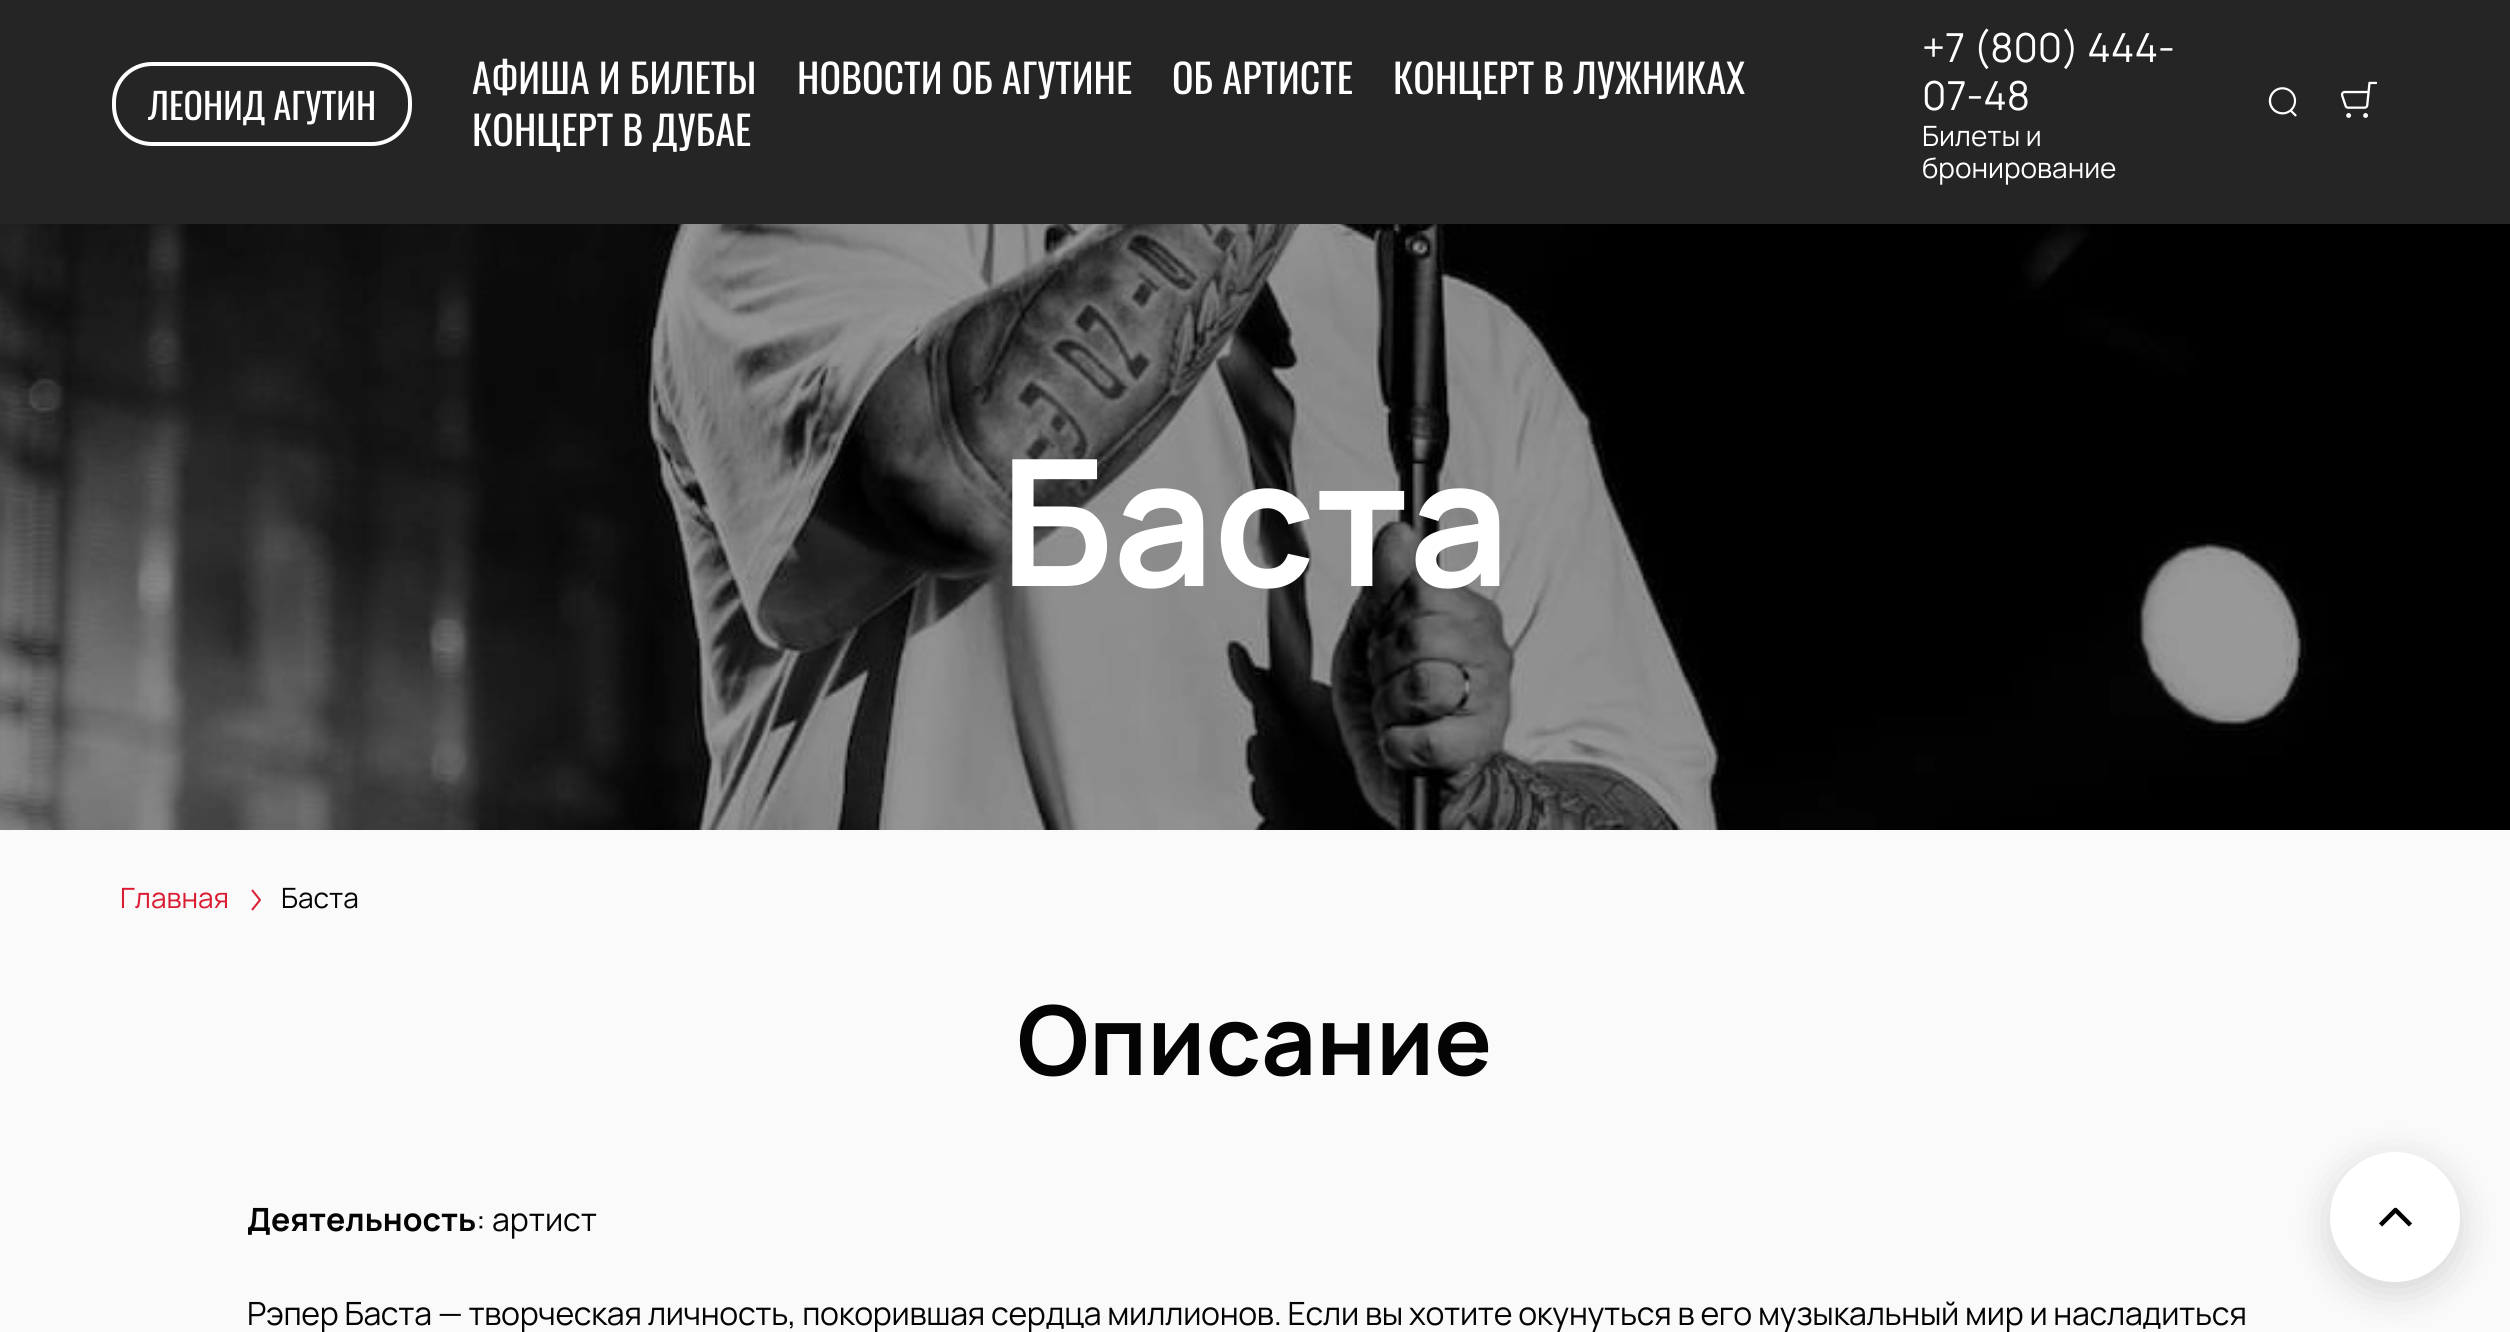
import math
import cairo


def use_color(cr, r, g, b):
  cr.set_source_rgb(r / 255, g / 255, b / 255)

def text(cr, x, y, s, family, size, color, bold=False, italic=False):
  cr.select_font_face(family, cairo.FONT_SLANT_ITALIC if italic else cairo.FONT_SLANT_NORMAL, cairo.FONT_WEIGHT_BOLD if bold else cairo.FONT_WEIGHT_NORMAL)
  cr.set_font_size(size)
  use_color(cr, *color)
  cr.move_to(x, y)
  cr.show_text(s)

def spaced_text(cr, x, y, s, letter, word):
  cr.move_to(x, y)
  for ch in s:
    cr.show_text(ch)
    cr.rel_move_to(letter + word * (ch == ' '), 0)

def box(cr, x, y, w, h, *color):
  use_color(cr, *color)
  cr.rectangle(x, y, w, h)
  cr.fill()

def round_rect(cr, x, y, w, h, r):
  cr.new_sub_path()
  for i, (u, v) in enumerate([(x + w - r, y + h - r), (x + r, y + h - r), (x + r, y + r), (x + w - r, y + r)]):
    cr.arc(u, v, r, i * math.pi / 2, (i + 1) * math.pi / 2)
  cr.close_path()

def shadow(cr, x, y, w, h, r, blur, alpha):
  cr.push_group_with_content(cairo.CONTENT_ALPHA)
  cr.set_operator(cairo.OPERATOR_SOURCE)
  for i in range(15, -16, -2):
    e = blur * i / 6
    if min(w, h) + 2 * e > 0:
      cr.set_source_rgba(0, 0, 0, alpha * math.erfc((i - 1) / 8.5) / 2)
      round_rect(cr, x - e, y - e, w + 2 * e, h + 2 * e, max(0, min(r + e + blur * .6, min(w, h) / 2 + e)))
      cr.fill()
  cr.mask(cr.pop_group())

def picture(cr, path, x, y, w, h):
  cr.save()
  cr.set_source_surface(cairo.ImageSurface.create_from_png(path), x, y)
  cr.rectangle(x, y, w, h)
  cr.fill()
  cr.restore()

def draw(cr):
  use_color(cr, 250, 250, 250)
  cr.paint()
  box(cr, 0, 0, 2510, 224, 37, 37, 37)
  round_rect(cr, 114, 64, 296, 80, 38)
  use_color(cr, 255, 255, 255)
  cr.set_line_width(4)
  cr.stroke()
  picture(cr, "img_01.png", 2268, 87, 29, 30)
  picture(cr, "img_02.png", 2340, 81, 38, 37)
  picture(cr, "img_03.png", 0, 224, 2510, 606)
  cr.new_path()
  cr.move_to(252, 890)
  cr.line_to(260, 900)
  cr.line_to(252, 910)
  use_color(cr, 218, 28, 50)
  cr.set_line_width(2)
  cr.set_line_join(cairo.LINE_JOIN_ROUND)
  cr.stroke()
  use_color(cr, 0, 0, 0)
  shadow(cr, 2330, 1162, 130, 130, 65, 20, 0.15)
  use_color(cr, 255, 255, 255)
  cr.arc(2395, 1217, 65, 0, 2 * math.pi)
  cr.fill()
  cr.new_path()
  cr.move_to(2410.5, 1225)
  cr.line_to(2395.5, 1210)
  cr.line_to(2380.5, 1225)
  use_color(cr, 0, 0, 0)
  cr.set_line_width(4.5)
  cr.stroke()
  text(cr, 148, 120, "ЛЕОНИД АГУТИН", "Oswald", 36, (255, 255, 255))
  text(cr, 472, 94, "АФИША И БИЛЕТЫ", "Oswald", 40, (255, 255, 255))
  text(cr, 797, 94, "НОВОСТИ ОБ АГУТИНЕ", "Oswald", 40, (255, 255, 255))
  text(cr, 1172, 94, "ОБ АРТИСТЕ", "Oswald", 40, (255, 255, 255))
  text(cr, 1393, 94, "КОНЦЕРТ В ЛУЖНИКАХ", "Oswald", 40, (255, 255, 255))
  text(cr, 472, 146, "КОНЦЕРТ В ДУБАЕ", "Oswald", 40, (255, 255, 255))
  text(cr, 1922, 62, "+7 (800) 444-", "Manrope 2 ExtraLight", 40, (255, 255, 255))
  text(cr, 1922, 110, "07-48", "Manrope 2 ExtraLight", 40, (255, 255, 255))
  text(cr, 1922, 146, "Билеты и", "Manrope 2 ExtraLight", 28, (255, 255, 255))
  text(cr, 1922, 178, "бронирование", "Manrope 2 ExtraLight", 28, (255, 255, 255))
  text(cr, 1000, 586, "Баста", "Manrope ExtraLight", 176, (255, 255, 255))
  text(cr, 120, 908, "Главная", "Manrope 2 ExtraLight", 28, (218, 28, 50))
  text(cr, 281, 908, "Баста", "Manrope 2 ExtraLight", 28, (4, 4, 4))
  text(cr, 1017, 1075, "Описание", "Manrope ExtraLight", 96, (4, 4, 4))
  text(cr, 247, 1231, "Деятельность", "Manrope ExtraLight", 32, (4, 4, 4))
  text(cr, 476, 1231, ": артист", "Manrope 2 ExtraLight", 32, (4, 4, 4))
  spaced_text(cr, 247, 1325, "Рэпер Баста — творческая личность, покорившая сердца миллионов. Если вы хотите окунуться в его музыкальный мир и насладиться", -0.32, 0)


surface = cairo.ImageSurface(cairo.FORMAT_RGB24, 2510, 1332)
cr = cairo.Context(surface)
options = cairo.FontOptions()
options.set_hint_metrics(cairo.HINT_METRICS_OFF)
options.set_hint_style(cairo.HINT_STYLE_NONE)
cr.set_font_options(options)
cr.set_miter_limit(4)
draw(cr)
surface.write_to_png("out.png")
